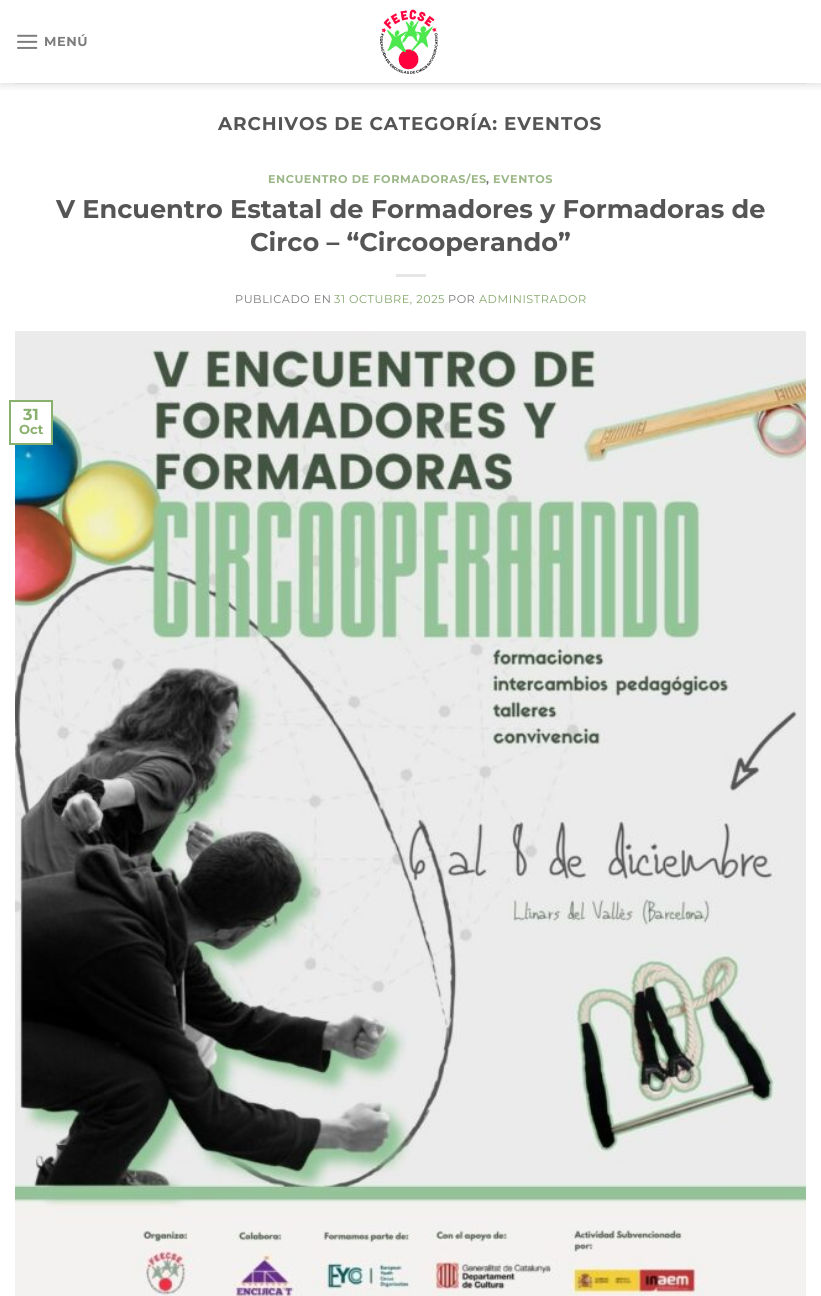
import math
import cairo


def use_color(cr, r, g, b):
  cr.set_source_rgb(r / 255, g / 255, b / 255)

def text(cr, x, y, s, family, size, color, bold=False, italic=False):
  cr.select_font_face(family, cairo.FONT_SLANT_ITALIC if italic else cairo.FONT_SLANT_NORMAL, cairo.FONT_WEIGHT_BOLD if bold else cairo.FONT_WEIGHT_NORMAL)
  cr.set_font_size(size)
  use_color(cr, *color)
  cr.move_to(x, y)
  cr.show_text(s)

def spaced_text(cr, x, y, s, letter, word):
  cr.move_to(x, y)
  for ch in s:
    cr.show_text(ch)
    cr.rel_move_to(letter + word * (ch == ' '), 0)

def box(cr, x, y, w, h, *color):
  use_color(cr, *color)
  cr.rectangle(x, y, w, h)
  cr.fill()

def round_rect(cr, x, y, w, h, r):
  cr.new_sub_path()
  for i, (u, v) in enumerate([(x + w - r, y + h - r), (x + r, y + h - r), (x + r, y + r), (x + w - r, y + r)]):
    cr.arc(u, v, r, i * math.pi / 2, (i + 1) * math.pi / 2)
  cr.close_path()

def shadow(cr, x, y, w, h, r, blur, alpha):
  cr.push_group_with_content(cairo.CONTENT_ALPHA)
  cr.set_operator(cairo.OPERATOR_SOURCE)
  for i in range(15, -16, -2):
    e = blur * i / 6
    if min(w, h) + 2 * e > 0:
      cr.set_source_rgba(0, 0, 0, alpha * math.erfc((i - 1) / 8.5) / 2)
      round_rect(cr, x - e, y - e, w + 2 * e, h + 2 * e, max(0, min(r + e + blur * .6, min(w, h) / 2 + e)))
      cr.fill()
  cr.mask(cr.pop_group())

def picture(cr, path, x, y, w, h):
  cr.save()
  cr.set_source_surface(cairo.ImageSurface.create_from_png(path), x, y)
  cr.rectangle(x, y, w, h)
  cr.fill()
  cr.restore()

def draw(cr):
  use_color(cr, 255, 255, 255)
  cr.paint()
  cr.save()
  cr.rectangle(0, 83, 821, 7)
  cr.clip()
  use_color(cr, 0, 0, 0)
  shadow(cr, 1, 1, 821, 83, 0, 5, 0.15)
  cr.restore()
  picture(cr, "img_01.png", 17, 34, 21, 15)
  picture(cr, "img_02.png", 380, 9, 58, 65)
  box(cr, 15, 83, 791, 1, 223, 223, 223)
  box(cr, 396, 274, 30, 3, 230, 230, 230)
  picture(cr, "img_03.png", 15, 331, 791, 965)
  box(cr, 15, 402, 36, 41, 255, 255, 255)
  cr.rectangle(10, 401, 42, 43)
  use_color(cr, 137, 176, 109)
  cr.stroke()
  cr.select_font_face("Montserrat", cairo.FONT_SLANT_NORMAL, cairo.FONT_WEIGHT_BOLD)
  cr.set_font_size(13)
  use_color(cr, 125, 125, 125)
  spaced_text(cr, 44, 46, "MENÚ", 0.5, 0)
  cr.set_font_size(18.4)
  use_color(cr, 85, 85, 85)
  spaced_text(cr, 218, 130, "ARCHIVOS DE CATEGORÍA: EVENTOS", 0.9, 0)
  cr.set_font_size(11.25)
  use_color(cr, 155, 183, 135)
  spaced_text(cr, 268, 183, "ENCUENTRO DE FORMADORAS/ES", 0.55, 0)
  use_color(cr, 119, 119, 119)
  spaced_text(cr, 486, 183, ",", 0.55, 0)
  use_color(cr, 155, 183, 135)
  spaced_text(cr, 493, 183, "EVENTOS", 0.55, 0)
  text(cr, 56, 218, "V Encuentro Estatal de Formadores y Formadoras de", "Montserrat", 25.6, (85, 85, 85), bold=True)
  text(cr, 250, 251, "Circo – “Circooperando”", "Montserrat", 25.6, (85, 85, 85), bold=True)
  cr.select_font_face("Montserrat")
  cr.set_font_size(11.25)
  use_color(cr, 119, 119, 119)
  spaced_text(cr, 235, 303, "PUBLICADO EN", 0.55, 0)
  use_color(cr, 130, 165, 105)
  spaced_text(cr, 334, 303, "31 OCTUBRE, 2025", 0.55, 0)
  use_color(cr, 119, 119, 119)
  spaced_text(cr, 448, 303, "POR", 0.55, 0)
  use_color(cr, 130, 165, 105)
  spaced_text(cr, 479, 303, "ADMINISTRADOR", 0.55, 0)
  text(cr, 23, 420, "31", "Montserrat", 16, (137, 176, 109), bold=True)
  text(cr, 19, 434, "Oct", "Montserrat", 13, (137, 176, 109), bold=True)


surface = cairo.ImageSurface(cairo.FORMAT_RGB24, 821, 1296)
cr = cairo.Context(surface)
options = cairo.FontOptions()
options.set_hint_metrics(cairo.HINT_METRICS_OFF)
options.set_hint_style(cairo.HINT_STYLE_NONE)
cr.set_font_options(options)
cr.set_miter_limit(4)
draw(cr)
surface.write_to_png("out.png")
